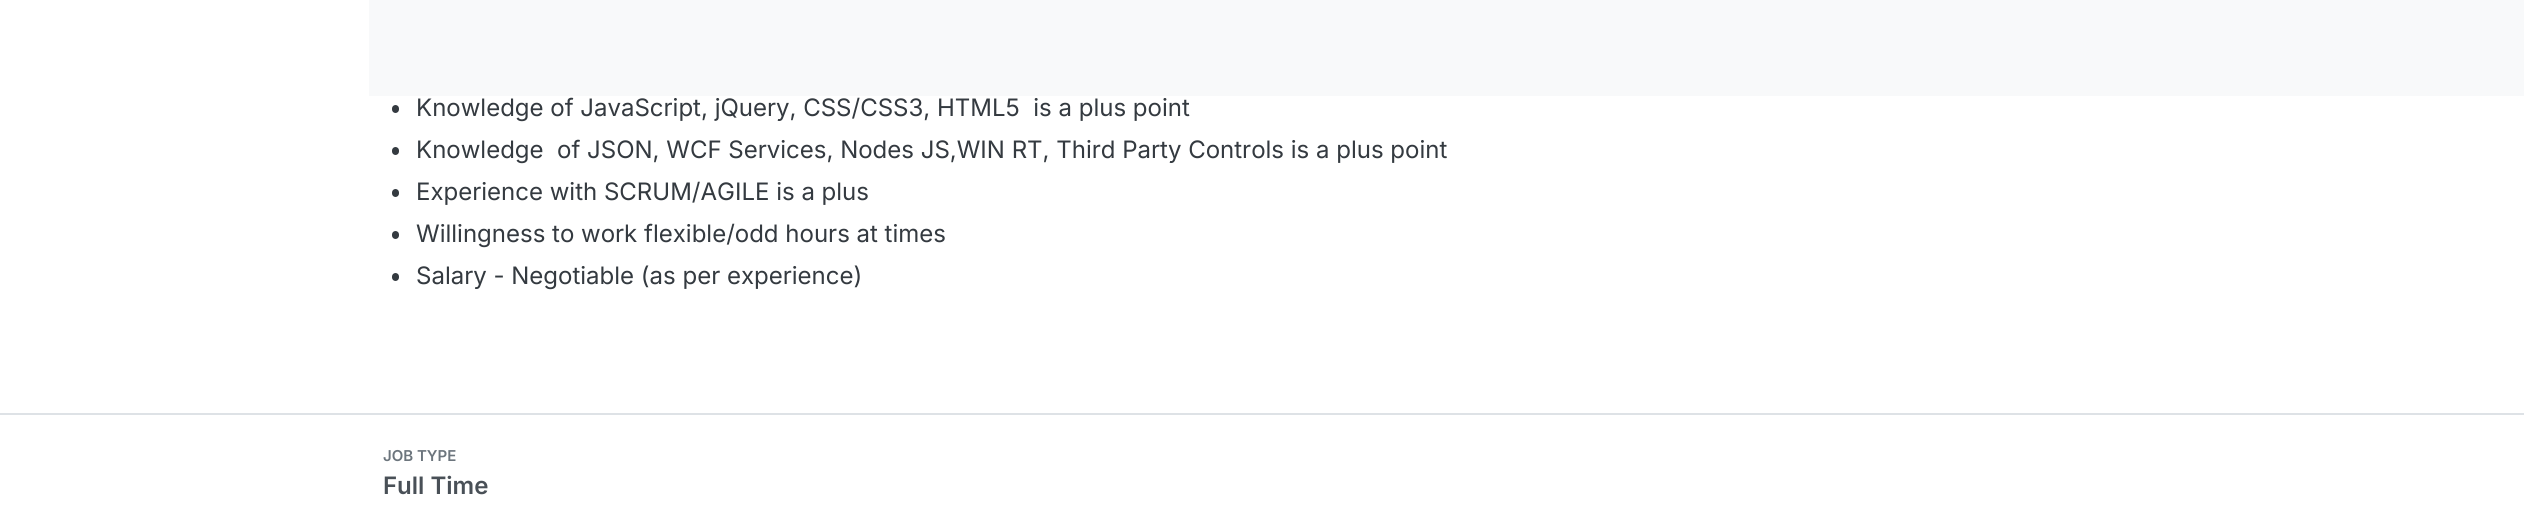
import math
import cairo


def use_color(cr, r, g, b):
  cr.set_source_rgb(r / 255, g / 255, b / 255)

def text(cr, x, y, s, family, size, color, bold=False, italic=False):
  cr.select_font_face(family, cairo.FONT_SLANT_ITALIC if italic else cairo.FONT_SLANT_NORMAL, cairo.FONT_WEIGHT_BOLD if bold else cairo.FONT_WEIGHT_NORMAL)
  cr.set_font_size(size)
  use_color(cr, *color)
  cr.move_to(x, y)
  cr.show_text(s)

def box(cr, x, y, w, h, *color):
  use_color(cr, *color)
  cr.rectangle(x, y, w, h)
  cr.fill()

def round_rect(cr, x, y, w, h, r):
  cr.new_sub_path()
  for i, (u, v) in enumerate([(x + w - r, y + h - r), (x + r, y + h - r), (x + r, y + r), (x + w - r, y + r)]):
    cr.arc(u, v, r, i * math.pi / 2, (i + 1) * math.pi / 2)
  cr.close_path()

def draw(cr):
  use_color(cr, 255, 255, 255)
  cr.paint()
  box(cr, 369, 0, 2155, 96, 248, 249, 250)
  use_color(cr, 52, 58, 64)
  round_rect(cr, 392, 105, 7, 8, 3.5)
  cr.fill()
  round_rect(cr, 392, 147, 7, 8, 3.5)
  cr.fill()
  round_rect(cr, 392, 189, 7, 8, 3.5)
  cr.fill()
  round_rect(cr, 392, 231, 7, 8, 3.5)
  cr.fill()
  round_rect(cr, 392, 273, 7, 8, 3.5)
  cr.fill()
  box(cr, 0, 413, 2524, 2, 222, 226, 230)
  text(cr, 416, 116, "Knowledge of JavaScript, jQuery, CSS/CSS3, HTML5  is a plus point", "Inter", 24, (52, 58, 64))
  text(cr, 416, 158, "Knowledge  of JSON, WCF Services, Nodes JS,WIN RT, Third Party Controls is a plus point", "Inter", 24, (52, 58, 64))
  text(cr, 416, 200, "Experience with SCRUM/AGILE is a plus", "Inter", 24, (52, 58, 64))
  text(cr, 416, 242, "Willingness to work flexible/odd hours at times", "Inter", 24, (52, 58, 64))
  text(cr, 416, 284, "Salary - Negotiable (as per experience)", "Inter", 24, (52, 58, 64))
  text(cr, 383, 461, "JOB TYPE", "Inter SemiBold", 15, (108, 117, 125))
  text(cr, 383, 494, "Full Time", "Inter SemiBold", 24, (73, 80, 87))


surface = cairo.ImageSurface(cairo.FORMAT_RGB24, 2524, 532)
cr = cairo.Context(surface)
options = cairo.FontOptions()
options.set_hint_metrics(cairo.HINT_METRICS_OFF)
options.set_hint_style(cairo.HINT_STYLE_NONE)
cr.set_font_options(options)
cr.set_miter_limit(4)
draw(cr)
surface.write_to_png("out.png")
